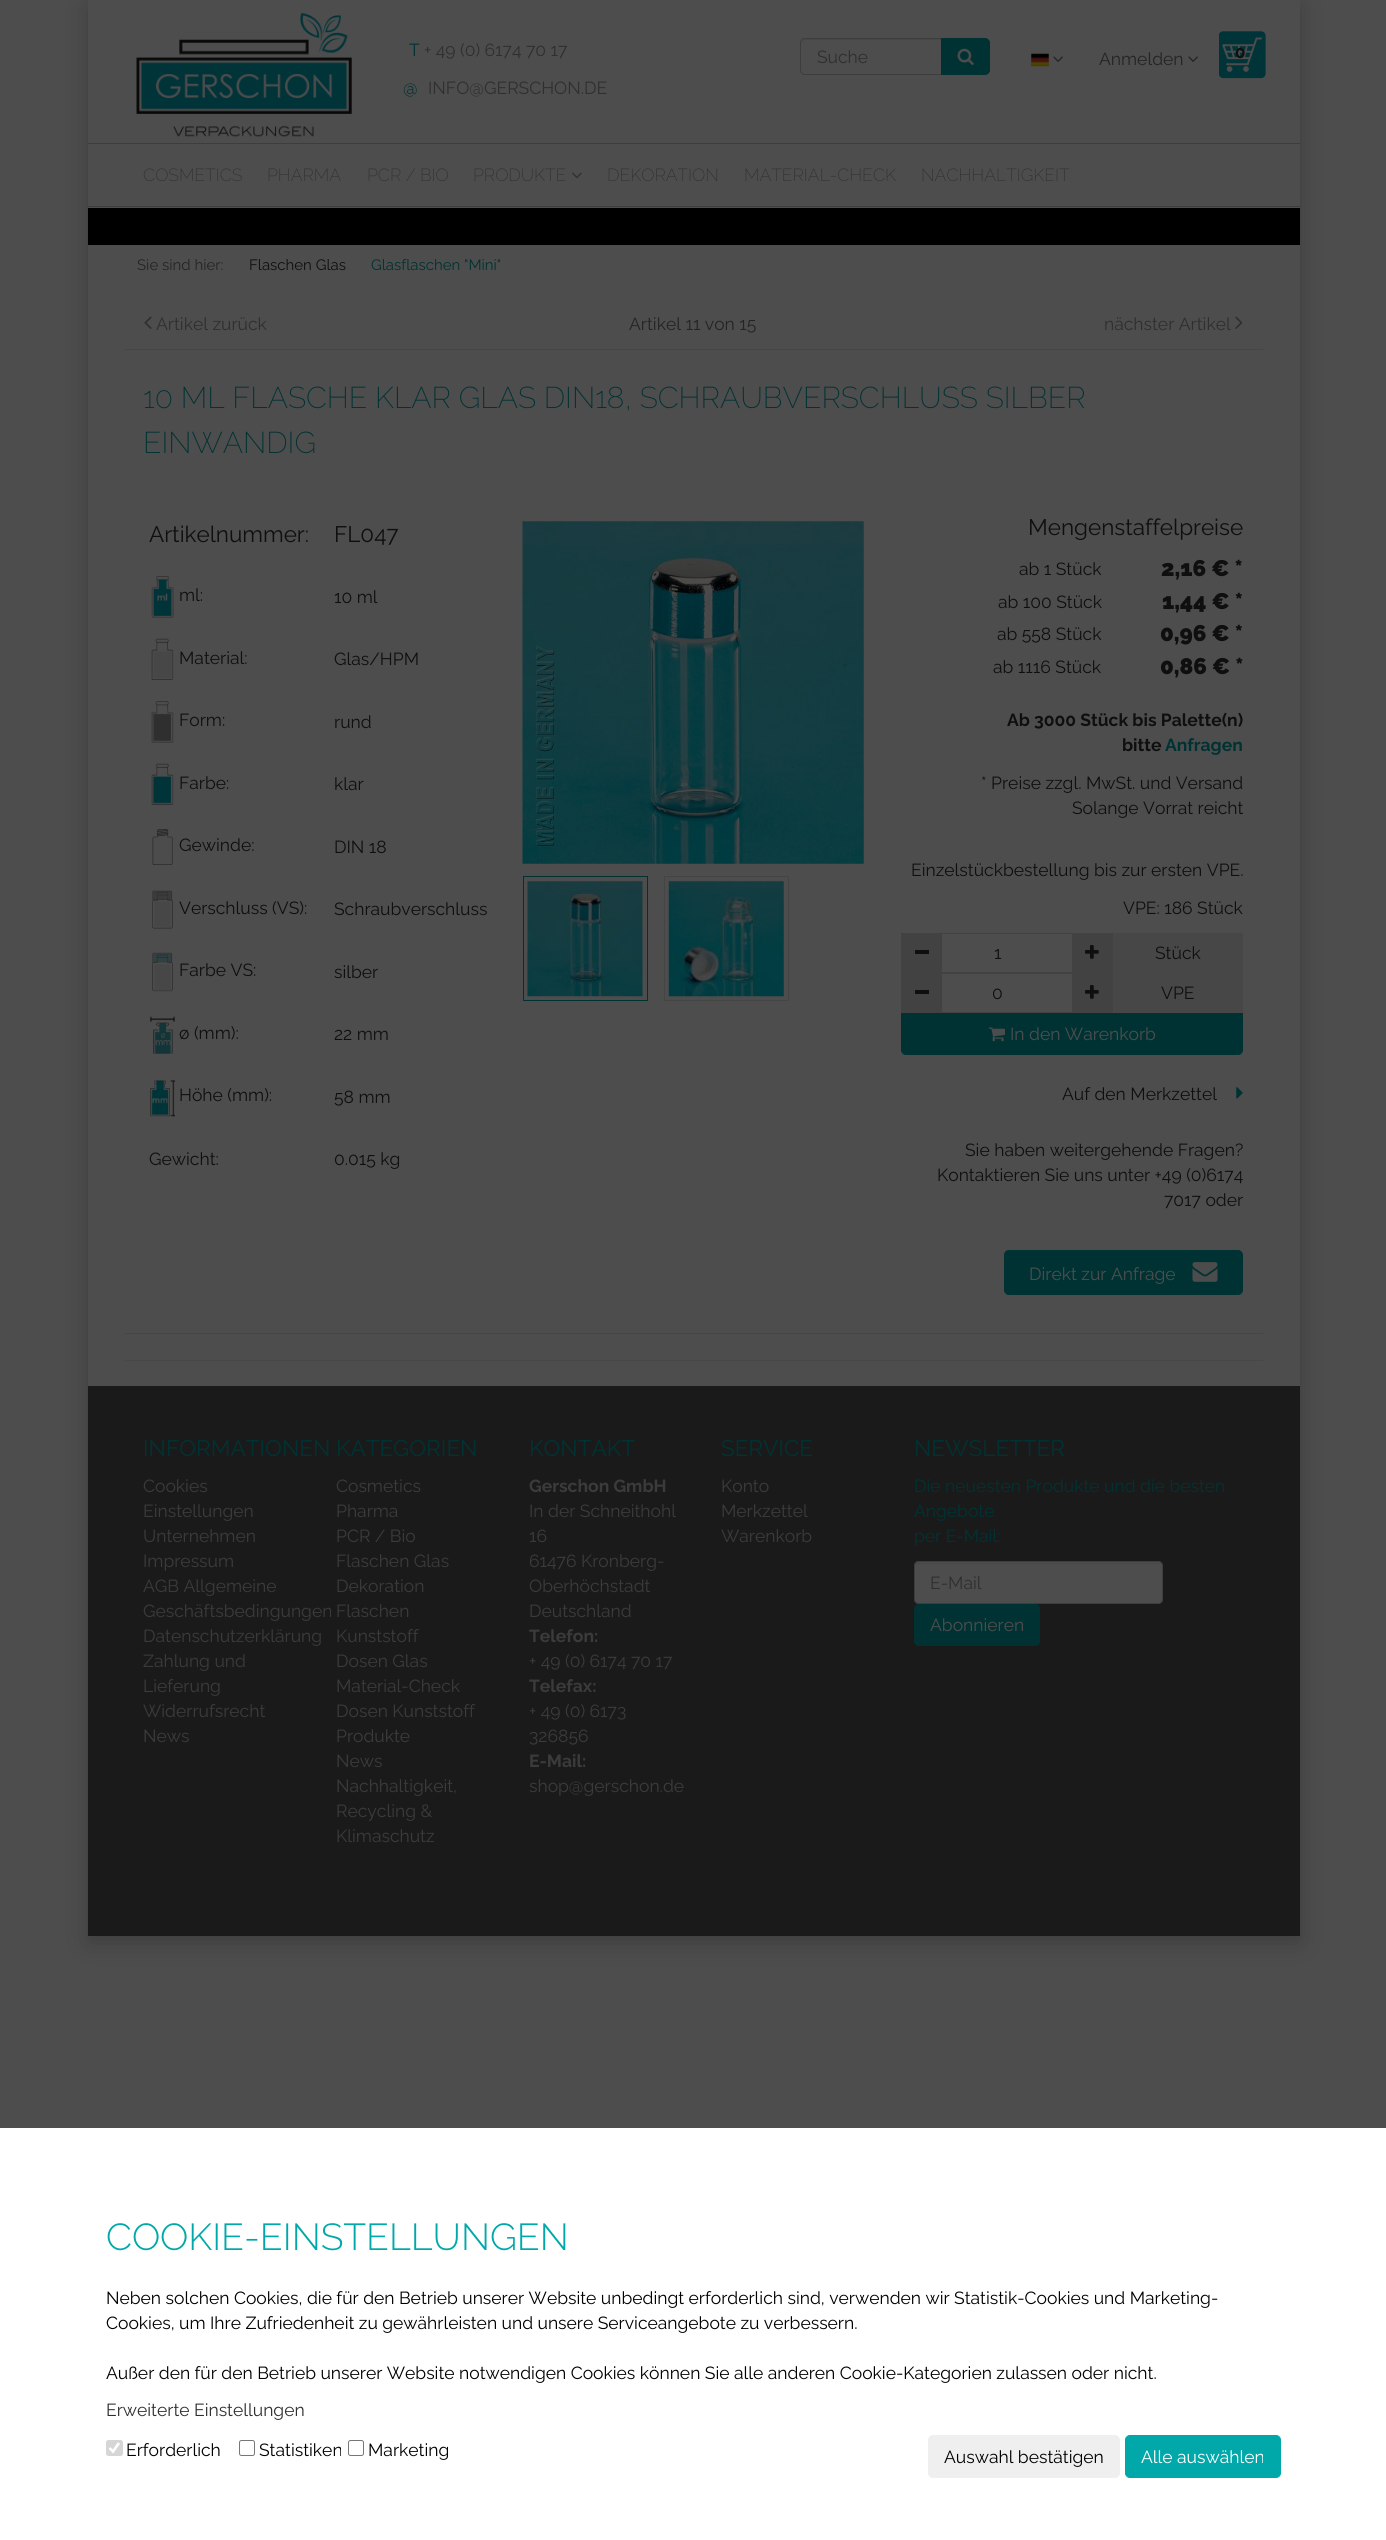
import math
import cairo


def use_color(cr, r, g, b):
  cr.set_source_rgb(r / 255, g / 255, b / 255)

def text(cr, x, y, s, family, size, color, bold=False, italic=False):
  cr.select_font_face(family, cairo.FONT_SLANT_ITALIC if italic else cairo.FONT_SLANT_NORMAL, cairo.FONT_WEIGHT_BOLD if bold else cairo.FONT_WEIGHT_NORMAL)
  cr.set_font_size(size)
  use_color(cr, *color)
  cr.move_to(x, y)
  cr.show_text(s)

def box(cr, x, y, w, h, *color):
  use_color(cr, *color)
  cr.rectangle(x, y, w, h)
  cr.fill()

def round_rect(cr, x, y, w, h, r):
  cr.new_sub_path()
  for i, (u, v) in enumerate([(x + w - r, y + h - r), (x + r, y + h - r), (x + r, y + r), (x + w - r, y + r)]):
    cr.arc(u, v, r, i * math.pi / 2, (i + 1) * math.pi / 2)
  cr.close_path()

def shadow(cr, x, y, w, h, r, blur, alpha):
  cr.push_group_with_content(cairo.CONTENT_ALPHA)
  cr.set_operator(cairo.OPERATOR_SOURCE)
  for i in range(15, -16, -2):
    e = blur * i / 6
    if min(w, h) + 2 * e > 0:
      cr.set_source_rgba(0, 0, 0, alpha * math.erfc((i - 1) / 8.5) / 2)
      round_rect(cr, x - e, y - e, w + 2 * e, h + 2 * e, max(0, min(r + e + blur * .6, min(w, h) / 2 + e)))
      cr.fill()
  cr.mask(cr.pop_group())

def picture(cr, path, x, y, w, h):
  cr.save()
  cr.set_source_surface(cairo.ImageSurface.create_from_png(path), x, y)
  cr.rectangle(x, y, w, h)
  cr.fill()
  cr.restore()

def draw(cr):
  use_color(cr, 255, 255, 255)
  cr.paint()
  box(cr, 0, 0, 1386, 2128, 77, 77, 77)
  cr.save()
  cr.set_fill_rule(cairo.FILL_RULE_EVEN_ODD)
  cr.new_path()
  cr.move_to(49, 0)
  cr.line_to(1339, 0)
  cr.line_to(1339, 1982)
  cr.line_to(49, 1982)
  cr.close_path()
  cr.move_to(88, 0)
  cr.line_to(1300, 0)
  cr.line_to(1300, 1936)
  cr.line_to(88, 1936)
  cr.close_path()
  cr.clip()
  use_color(cr, 0, 0, 0)
  shadow(cr, 88, 6, 1212, 1937, 0, 12.5, 0.2)
  cr.restore()
  picture(cr, "img_01.png", 136, 12, 216, 125)
  use_color(cr, 71, 71, 71)
  cr.new_path()
  cr.move_to(805, 40)
  cr.line_to(941, 40)
  cr.line_to(941, 39)
  cr.line_to(805, 39)
  cr.curve_to(803, 39, 801, 41, 801, 43)
  cr.line_to(801, 44)
  cr.curve_to(801, 42, 803, 40, 805, 40)
  cr.close_path()
  cr.fill()
  cr.new_path()
  cr.move_to(805, 38.5)
  cr.line_to(942.5, 38.5)
  cr.line_to(942.5, 74.5)
  cr.line_to(805, 74.5)
  cr.curve_to(802.5, 74.5, 800.5, 72.5, 800.5, 70)
  cr.line_to(800.5, 43)
  cr.curve_to(800.5, 40.5, 802.5, 38.5, 805, 38.5)
  cr.close_path()
  use_color(cr, 61, 61, 61)
  cr.set_line_width(1)
  cr.stroke()
  use_color(cr, 0, 50, 51)
  cr.new_path()
  cr.move_to(941.5, 38.5)
  cr.line_to(985, 38.5)
  cr.curve_to(987.5, 38.5, 989.5, 40.5, 989.5, 43)
  cr.line_to(989.5, 70)
  cr.curve_to(989.5, 72.5, 987.5, 74.5, 985, 74.5)
  cr.line_to(941.5, 74.5)
  cr.close_path()
  cr.fill_preserve()
  cr.stroke()
  picture(cr, "img_02.png", 957, 48, 17, 17)
  picture(cr, "img_03.png", 1031, 53, 18, 14)
  picture(cr, "img_04.png", 1053, 56, 10, 6)
  picture(cr, "img_04.png", 1188, 56, 10, 6)
  picture(cr, "img_05.png", 1219, 31, 47, 48)
  box(cr, 88, 143, 1212, 1, 61, 61, 61)
  box(cr, 88, 206, 1212, 1, 61, 61, 61)
  picture(cr, "img_06.png", 572, 172, 10, 7)
  box(cr, 88, 208, 1212, 37, 0, 0, 0)
  box(cr, 125, 349, 1138, 1, 69, 69, 69)
  picture(cr, "img_07.png", 144, 316, 8, 13)
  picture(cr, "img_08.png", 1235, 316, 8, 13)
  box(cr, 125, 1333, 1138, 1, 69, 69, 69)
  picture(cr, "img_09.png", 151, 576, 23, 42)
  picture(cr, "img_10.png", 151, 638, 23, 42)
  picture(cr, "img_11.png", 151, 701, 23, 42)
  picture(cr, "img_12.png", 151, 763, 23, 42)
  picture(cr, "img_13.png", 152, 829, 21, 36)
  picture(cr, "img_14.png", 152, 890, 21, 39)
  picture(cr, "img_15.png", 152, 952, 21, 40)
  picture(cr, "img_16.png", 150, 1016, 25, 38)
  picture(cr, "img_17.png", 150, 1080, 25, 37)
  picture(cr, "img_18.png", 522, 521, 342, 343)
  picture(cr, "img_19.png", 536, 645, 19, 202)
  cr.rectangle(523.5, 876.5, 124, 124)
  use_color(cr, 0, 50, 51)
  cr.stroke()
  picture(cr, "img_20.png", 527, 881, 116, 116)
  cr.rectangle(664.5, 876.5, 124, 124)
  use_color(cr, 69, 69, 69)
  cr.stroke()
  picture(cr, "img_21.png", 668, 881, 116, 116)
  box(cr, 901, 933, 40, 80, 66, 66, 66)
  box(cr, 915, 950, 14, 4, 15, 15, 15)
  cr.rectangle(941.5, 933.5, 131, 39)
  use_color(cr, 66, 66, 66)
  cr.stroke()
  box(cr, 1073, 933, 40, 80, 66, 66, 66)
  picture(cr, "img_22.png", 1085, 945, 14, 14)
  box(cr, 1113, 933, 130, 80, 71, 71, 71)
  box(cr, 915, 990, 14, 4, 15, 15, 15)
  cr.rectangle(941.5, 973.5, 131, 39)
  use_color(cr, 66, 66, 66)
  cr.stroke()
  picture(cr, "img_22.png", 1085, 985, 14, 14)
  use_color(cr, 0, 50, 51)
  cr.new_path()
  cr.move_to(901.5, 1013.5)
  cr.line_to(1242.5, 1013.5)
  cr.line_to(1242.5, 1050)
  cr.curve_to(1242.5, 1052.5, 1240.5, 1054.5, 1238, 1054.5)
  cr.line_to(906, 1054.5)
  cr.curve_to(903.5, 1054.5, 901.5, 1052.5, 901.5, 1050)
  cr.close_path()
  cr.fill_preserve()
  cr.stroke()
  picture(cr, "img_23.png", 988, 1027, 17, 15)
  picture(cr, "img_24.png", 1236, 1087, 7, 12)
  round_rect(cr, 1004.5, 1250.5, 238, 44, 4.5)
  cr.fill_preserve()
  cr.stroke()
  picture(cr, "img_25.png", 1192, 1262, 26, 20)
  box(cr, 125, 1360, 1138, 1, 71, 71, 71)
  box(cr, 88, 1386, 1212, 550, 26, 26, 26)
  use_color(cr, 77, 77, 77)
  round_rect(cr, 914, 1561, 249, 43, 5)
  cr.fill()
  use_color(cr, 71, 71, 71)
  cr.new_path()
  cr.move_to(919, 1564)
  cr.line_to(1158, 1564)
  cr.curve_to(1160, 1564, 1161, 1565, 1161, 1568)
  cr.line_to(1161, 1567)
  cr.curve_to(1161, 1565, 1159, 1563, 1157, 1563)
  cr.line_to(919, 1563)
  cr.curve_to(917, 1563, 915, 1565, 915, 1567)
  cr.line_to(915, 1568)
  cr.curve_to(915, 1565, 917, 1564, 919, 1564)
  cr.close_path()
  cr.fill()
  round_rect(cr, 914.5, 1561.5, 248, 42, 4.5)
  use_color(cr, 61, 61, 61)
  cr.stroke()
  use_color(cr, 0, 50, 51)
  round_rect(cr, 914.5, 1604.5, 125, 41, 4.5)
  cr.fill_preserve()
  cr.stroke()
  use_color(cr, 214, 214, 214)
  round_rect(cr, 106, 2440, 17, 16, 2.5)
  cr.fill()
  cr.new_path()
  cr.move_to(109.5, 2448)
  cr.line_to(113, 2451.5)
  cr.line_to(119, 2443)
  use_color(cr, 255, 255, 255)
  cr.set_line_width(2.6)
  cr.stroke()
  round_rect(cr, 239.5, 2440.5, 15, 15, 2)
  use_color(cr, 118, 118, 118)
  cr.set_line_width(1)
  cr.stroke()
  round_rect(cr, 348.5, 2440.5, 15, 15, 2)
  cr.stroke()
  use_color(cr, 239, 239, 239)
  round_rect(cr, 928, 2435, 192, 43, 5)
  cr.fill()
  use_color(cr, 0, 168, 169)
  round_rect(cr, 1125.5, 2435.5, 155, 42, 4.5)
  cr.fill_preserve()
  cr.stroke()
  text(cr, 409, 56, "T", "Raleway", 17.5, (0, 50, 51))
  text(cr, 424, 56, "+ 49 (0) 6174 70 17", "Raleway", 17.5, (47, 47, 47))
  text(cr, 403, 94, "@", "Raleway", 17.5, (0, 50, 51))
  text(cr, 428, 94, "INFO@GERSCHON.DE", "Raleway", 17.5, (47, 47, 47))
  text(cr, 817, 63, "Suche", "Raleway", 17.5, (47, 47, 47))
  text(cr, 1099, 65, "Anmelden", "Raleway", 17.5, (36, 36, 36))
  text(cr, 1235, 58, "0", "Raleway", 17, (15, 15, 15), bold=True)
  text(cr, 143, 181, "COSMETICS", "Raleway ExtraLight", 17.5, (47, 47, 47))
  text(cr, 267, 181, "PHARMA", "Raleway ExtraLight", 17.5, (47, 47, 47))
  text(cr, 367, 181, "PCR / BIO", "Raleway ExtraLight", 17.5, (47, 47, 47))
  text(cr, 473, 181, "PRODUKTE", "Raleway ExtraLight", 17.5, (47, 47, 47))
  text(cr, 607, 181, "DEKORATION", "Raleway ExtraLight", 17.5, (47, 47, 47))
  text(cr, 744, 181, "MATERIAL-CHECK", "Raleway ExtraLight", 17.5, (47, 47, 47))
  text(cr, 921, 181, "NACHHALTIGKEIT", "Raleway ExtraLight", 17.5, (47, 47, 47))
  text(cr, 137, 270, "Sie sind hier:", "Raleway", 15, (36, 36, 36))
  text(cr, 249, 270, "Flaschen Glas", "Raleway", 15, (15, 15, 15))
  text(cr, 371, 270, "Glasflaschen \"Mini\"", "Raleway", 15, (0, 50, 51))
  text(cr, 156, 330, "Artikel zurück", "Raleway", 17.5, (47, 47, 47))
  text(cr, 629, 330, "Artikel 11 von 15", "Raleway", 17.5, (36, 36, 36))
  text(cr, 1104, 330, "nächster Artikel", "Raleway", 17.5, (47, 47, 47))
  text(cr, 143, 408, "10 ML FLASCHE KLAR GLAS DIN18, SCHRAUBVERSCHLUSS SILBER", "Raleway ExtraLight", 30, (0, 50, 51))
  text(cr, 143, 453, "EINWANDIG", "Raleway ExtraLight", 30, (0, 50, 51))
  text(cr, 149, 542, "Artikelnummer:", "Raleway", 22.5, (15, 15, 15))
  text(cr, 334, 542, "FL047", "Raleway", 22.5, (15, 15, 15))
  text(cr, 179, 601, "ml:", "Raleway", 17.5, (15, 15, 15))
  text(cr, 334, 603, "10 ml", "Raleway", 17.5, (15, 15, 15))
  text(cr, 179, 664, "Material:", "Raleway", 17.5, (15, 15, 15))
  text(cr, 334, 665, "Glas/HPM", "Raleway", 17.5, (15, 15, 15))
  text(cr, 179, 726, "Form:", "Raleway", 17.5, (15, 15, 15))
  text(cr, 334, 728, "rund", "Raleway", 17.5, (15, 15, 15))
  text(cr, 179, 789, "Farbe:", "Raleway", 17.5, (15, 15, 15))
  text(cr, 334, 790, "klar", "Raleway", 17.5, (15, 15, 15))
  text(cr, 179, 851, "Gewinde:", "Raleway", 17.5, (15, 15, 15))
  text(cr, 334, 853, "DIN 18", "Raleway", 17.5, (15, 15, 15))
  text(cr, 179, 914, "Verschluss (VS):", "Raleway", 17.5, (15, 15, 15))
  text(cr, 334, 915, "Schraubverschluss", "Raleway", 17.5, (15, 15, 15))
  text(cr, 179, 976, "Farbe VS:", "Raleway", 17.5, (15, 15, 15))
  text(cr, 334, 978, "silber", "Raleway", 17.5, (15, 15, 15))
  text(cr, 179, 1039, "ø (mm):", "Raleway", 17.5, (15, 15, 15))
  text(cr, 334, 1040, "22 mm", "Raleway", 17.5, (15, 15, 15))
  text(cr, 179, 1101, "Höhe (mm):", "Raleway", 17.5, (15, 15, 15))
  text(cr, 334, 1103, "58 mm", "Raleway", 17.5, (15, 15, 15))
  text(cr, 149, 1165, "Gewicht:", "Raleway", 17.5, (15, 15, 15))
  text(cr, 334, 1165, "0.015 kg", "Raleway", 17.5, (15, 15, 15))
  text(cr, 1028, 535, "Mengenstaffelpreise", "Raleway", 22.5, (15, 15, 15))
  text(cr, 1019, 575, "ab 1 Stück", "Raleway", 17.5, (15, 15, 15))
  text(cr, 1161, 576, "2,16 € *", "Raleway Black", 22.5, (15, 15, 15))
  text(cr, 998, 608, "ab 100 Stück", "Raleway", 17.5, (15, 15, 15))
  text(cr, 1162, 609, "1,44 € *", "Raleway Black", 22.5, (15, 15, 15))
  text(cr, 997, 640, "ab 558 Stück", "Raleway", 17.5, (15, 15, 15))
  text(cr, 1160, 641, "0,96 € *", "Raleway Black", 22.5, (15, 15, 15))
  text(cr, 993, 673, "ab 1116 Stück", "Raleway", 17.5, (15, 15, 15))
  text(cr, 1160, 674, "0,86 € *", "Raleway Black", 22.5, (15, 15, 15))
  text(cr, 1007, 726, "Ab 3000 Stück bis Palette(n)", "Raleway", 17.5, (15, 15, 15), bold=True)
  text(cr, 1122, 751, "bitte", "Raleway", 17.5, (15, 15, 15), bold=True)
  text(cr, 1165, 751, "Anfragen", "Raleway", 17.5, (0, 50, 51), bold=True)
  text(cr, 981, 789, "* Preise zzgl. MwSt. und Versand", "Raleway", 17.5, (15, 15, 15))
  text(cr, 1072, 814, "Solange Vorrat reicht", "Raleway", 17.5, (15, 15, 15))
  text(cr, 911, 876, "Einzelstückbestellung bis zur ersten VPE.", "Raleway", 17.5, (15, 15, 15))
  text(cr, 1123, 914, "VPE: 186 Stück", "Raleway", 17.5, (15, 15, 15))
  text(cr, 994, 959, "1", "Raleway", 17.5, (15, 15, 15))
  text(cr, 1155, 959, "Stück", "Raleway", 17.5, (15, 15, 15))
  text(cr, 992, 999, "0", "Raleway", 17.5, (15, 15, 15))
  text(cr, 1161, 999, "VPE", "Raleway", 17.5, (15, 15, 15))
  text(cr, 1010, 1040, "In den Warenkorb", "Raleway", 17.5, (77, 77, 77))
  text(cr, 1062, 1100, "Auf den Merkzettel", "Raleway", 17.5, (15, 15, 15))
  text(cr, 965, 1156, "Sie haben weitergehende Fragen?", "Raleway", 17.5, (15, 15, 15))
  text(cr, 937, 1181, "Kontaktieren Sie uns unter +49 (0)6174", "Raleway", 17.5, (15, 15, 15))
  text(cr, 1164, 1206, "7017 oder", "Raleway", 17.5, (15, 15, 15))
  text(cr, 1029, 1280, "Direkt zur Anfrage", "Raleway", 17.5, (77, 77, 77))
  text(cr, 143, 1456, "INFORMATIONEN", "Raleway", 22.5, (0, 50, 51))
  text(cr, 143, 1492, "Cookies", "Raleway", 17.5, (59, 59, 59))
  text(cr, 143, 1517, "Einstellungen", "Raleway", 17.5, (59, 59, 59))
  text(cr, 143, 1542, "Unternehmen", "Raleway", 17.5, (59, 59, 59))
  text(cr, 143, 1567, "Impressum", "Raleway", 17.5, (59, 59, 59))
  text(cr, 143, 1592, "AGB Allgemeine", "Raleway", 17.5, (59, 59, 59))
  text(cr, 143, 1617, "Geschäftsbedingungen", "Raleway", 17.5, (59, 59, 59))
  text(cr, 143, 1642, "Datenschutzerklärung", "Raleway", 17.5, (59, 59, 59))
  text(cr, 143, 1667, "Zahlung und", "Raleway", 17.5, (59, 59, 59))
  text(cr, 143, 1692, "Lieferung", "Raleway", 17.5, (59, 59, 59))
  text(cr, 143, 1717, "Widerrufsrecht", "Raleway", 17.5, (59, 59, 59))
  text(cr, 143, 1742, "News", "Raleway", 17.5, (59, 59, 59))
  text(cr, 336, 1456, "KATEGORIEN", "Raleway", 22.5, (0, 50, 51))
  text(cr, 336, 1492, "Cosmetics", "Raleway", 17.5, (59, 59, 59))
  text(cr, 336, 1517, "Pharma", "Raleway", 17.5, (59, 59, 59))
  text(cr, 336, 1542, "PCR / Bio", "Raleway", 17.5, (59, 59, 59))
  text(cr, 336, 1567, "Flaschen Glas", "Raleway", 17.5, (59, 59, 59))
  text(cr, 336, 1592, "Dekoration", "Raleway", 17.5, (59, 59, 59))
  text(cr, 336, 1617, "Flaschen", "Raleway", 17.5, (59, 59, 59))
  text(cr, 336, 1642, "Kunststoff", "Raleway", 17.5, (59, 59, 59))
  text(cr, 336, 1667, "Dosen Glas", "Raleway", 17.5, (59, 59, 59))
  text(cr, 336, 1692, "Material-Check", "Raleway", 17.5, (59, 59, 59))
  text(cr, 336, 1717, "Dosen Kunststoff", "Raleway", 17.5, (59, 59, 59))
  text(cr, 336, 1742, "Produkte", "Raleway", 17.5, (59, 59, 59))
  text(cr, 336, 1767, "News", "Raleway", 17.5, (59, 59, 59))
  text(cr, 336, 1792, "Nachhaltigkeit,", "Raleway", 17.5, (59, 59, 59))
  text(cr, 336, 1817, "Recycling &", "Raleway", 17.5, (59, 59, 59))
  text(cr, 336, 1842, "Klimaschutz", "Raleway", 17.5, (59, 59, 59))
  text(cr, 529, 1456, "KONTAKT", "Raleway", 22.5, (0, 50, 51))
  text(cr, 529, 1492, "Gerschon GmbH", "Raleway", 17.5, (59, 59, 59), bold=True)
  text(cr, 529, 1517, "In der Schneithohl", "Raleway", 17.5, (59, 59, 59))
  text(cr, 529, 1542, "16", "Raleway", 17.5, (59, 59, 59))
  text(cr, 529, 1567, "61476 Kronberg-", "Raleway", 17.5, (59, 59, 59))
  text(cr, 529, 1592, "Oberhöchstadt", "Raleway", 17.5, (59, 59, 59))
  text(cr, 529, 1617, "Deutschland", "Raleway", 17.5, (59, 59, 59))
  text(cr, 529, 1642, "Telefon:", "Raleway", 17.5, (59, 59, 59), bold=True)
  text(cr, 529, 1667, "+ 49 (0) 6174 70 17", "Raleway", 17.5, (59, 59, 59))
  text(cr, 529, 1692, "Telefax:", "Raleway", 17.5, (59, 59, 59), bold=True)
  text(cr, 529, 1717, "+ 49 (0) 6173", "Raleway", 17.5, (59, 59, 59))
  text(cr, 529, 1742, "326856", "Raleway", 17.5, (59, 59, 59))
  text(cr, 529, 1767, "E-Mail:", "Raleway", 17.5, (59, 59, 59), bold=True)
  text(cr, 529, 1792, "shop@gerschon.de", "Raleway", 17.5, (59, 59, 59))
  text(cr, 721, 1456, "SERVICE", "Raleway", 22.5, (0, 50, 51))
  text(cr, 721, 1492, "Konto", "Raleway", 17.5, (59, 59, 59))
  text(cr, 721, 1517, "Merkzettel", "Raleway", 17.5, (59, 59, 59))
  text(cr, 721, 1542, "Warenkorb", "Raleway", 17.5, (59, 59, 59))
  text(cr, 914, 1456, "NEWSLETTER", "Raleway", 22.5, (0, 50, 51))
  text(cr, 914, 1492, "Die neuesten Produkte und die besten", "Raleway", 17.5, (0, 50, 51))
  text(cr, 914, 1517, "Angebote", "Raleway", 17.5, (0, 50, 51))
  text(cr, 914, 1542, "per E-Mail:", "Raleway", 17.5, (0, 50, 51))
  text(cr, 930, 1589, "E-Mail", "Raleway", 17.5, (47, 47, 47))
  text(cr, 930, 1631, "Abonnieren", "Raleway", 17.5, (77, 77, 77))
  text(cr, 106, 2250, "COOKIE-EINSTELLUNGEN", "Raleway Light", 37.5, (0, 168, 169))
  text(cr, 106, 2304, "Neben solchen Cookies, die für den Betrieb unserer Website unbedingt erforderlich sind, verwenden wir Statistik-Cookies und Marketing-", "Raleway", 17.5, (0, 0, 0))
  text(cr, 106, 2329, "Cookies, um Ihre Zufriedenheit zu gewährleisten und unsere Serviceangebote zu verbessern.", "Raleway", 17.5, (0, 0, 0))
  text(cr, 106, 2379, "Außer den für den Betrieb unserer Website notwendigen Cookies können Sie alle anderen Cookie-Kategorien zulassen oder nicht.", "Raleway", 17.5, (0, 0, 0))
  text(cr, 106, 2416, "Erweiterte Einstellungen", "Raleway", 17.5, (47, 47, 47))
  text(cr, 126, 2456, "Erforderlich", "Raleway", 17.5, (0, 0, 0))
  text(cr, 259, 2456, "Statistiken", "Raleway", 17.5, (0, 0, 0))
  text(cr, 368, 2456, "Marketing", "Raleway", 17.5, (0, 0, 0))
  text(cr, 944, 2463, "Auswahl bestätigen", "Raleway", 17.5, (0, 0, 0))
  text(cr, 1141, 2463, "Alle auswählen", "Raleway", 17.5, (255, 255, 255))


surface = cairo.ImageSurface(cairo.FORMAT_RGB24, 1386, 2540)
cr = cairo.Context(surface)
options = cairo.FontOptions()
options.set_hint_metrics(cairo.HINT_METRICS_OFF)
options.set_hint_style(cairo.HINT_STYLE_NONE)
cr.set_font_options(options)
cr.set_miter_limit(4)
draw(cr)
surface.write_to_png("out.png")
